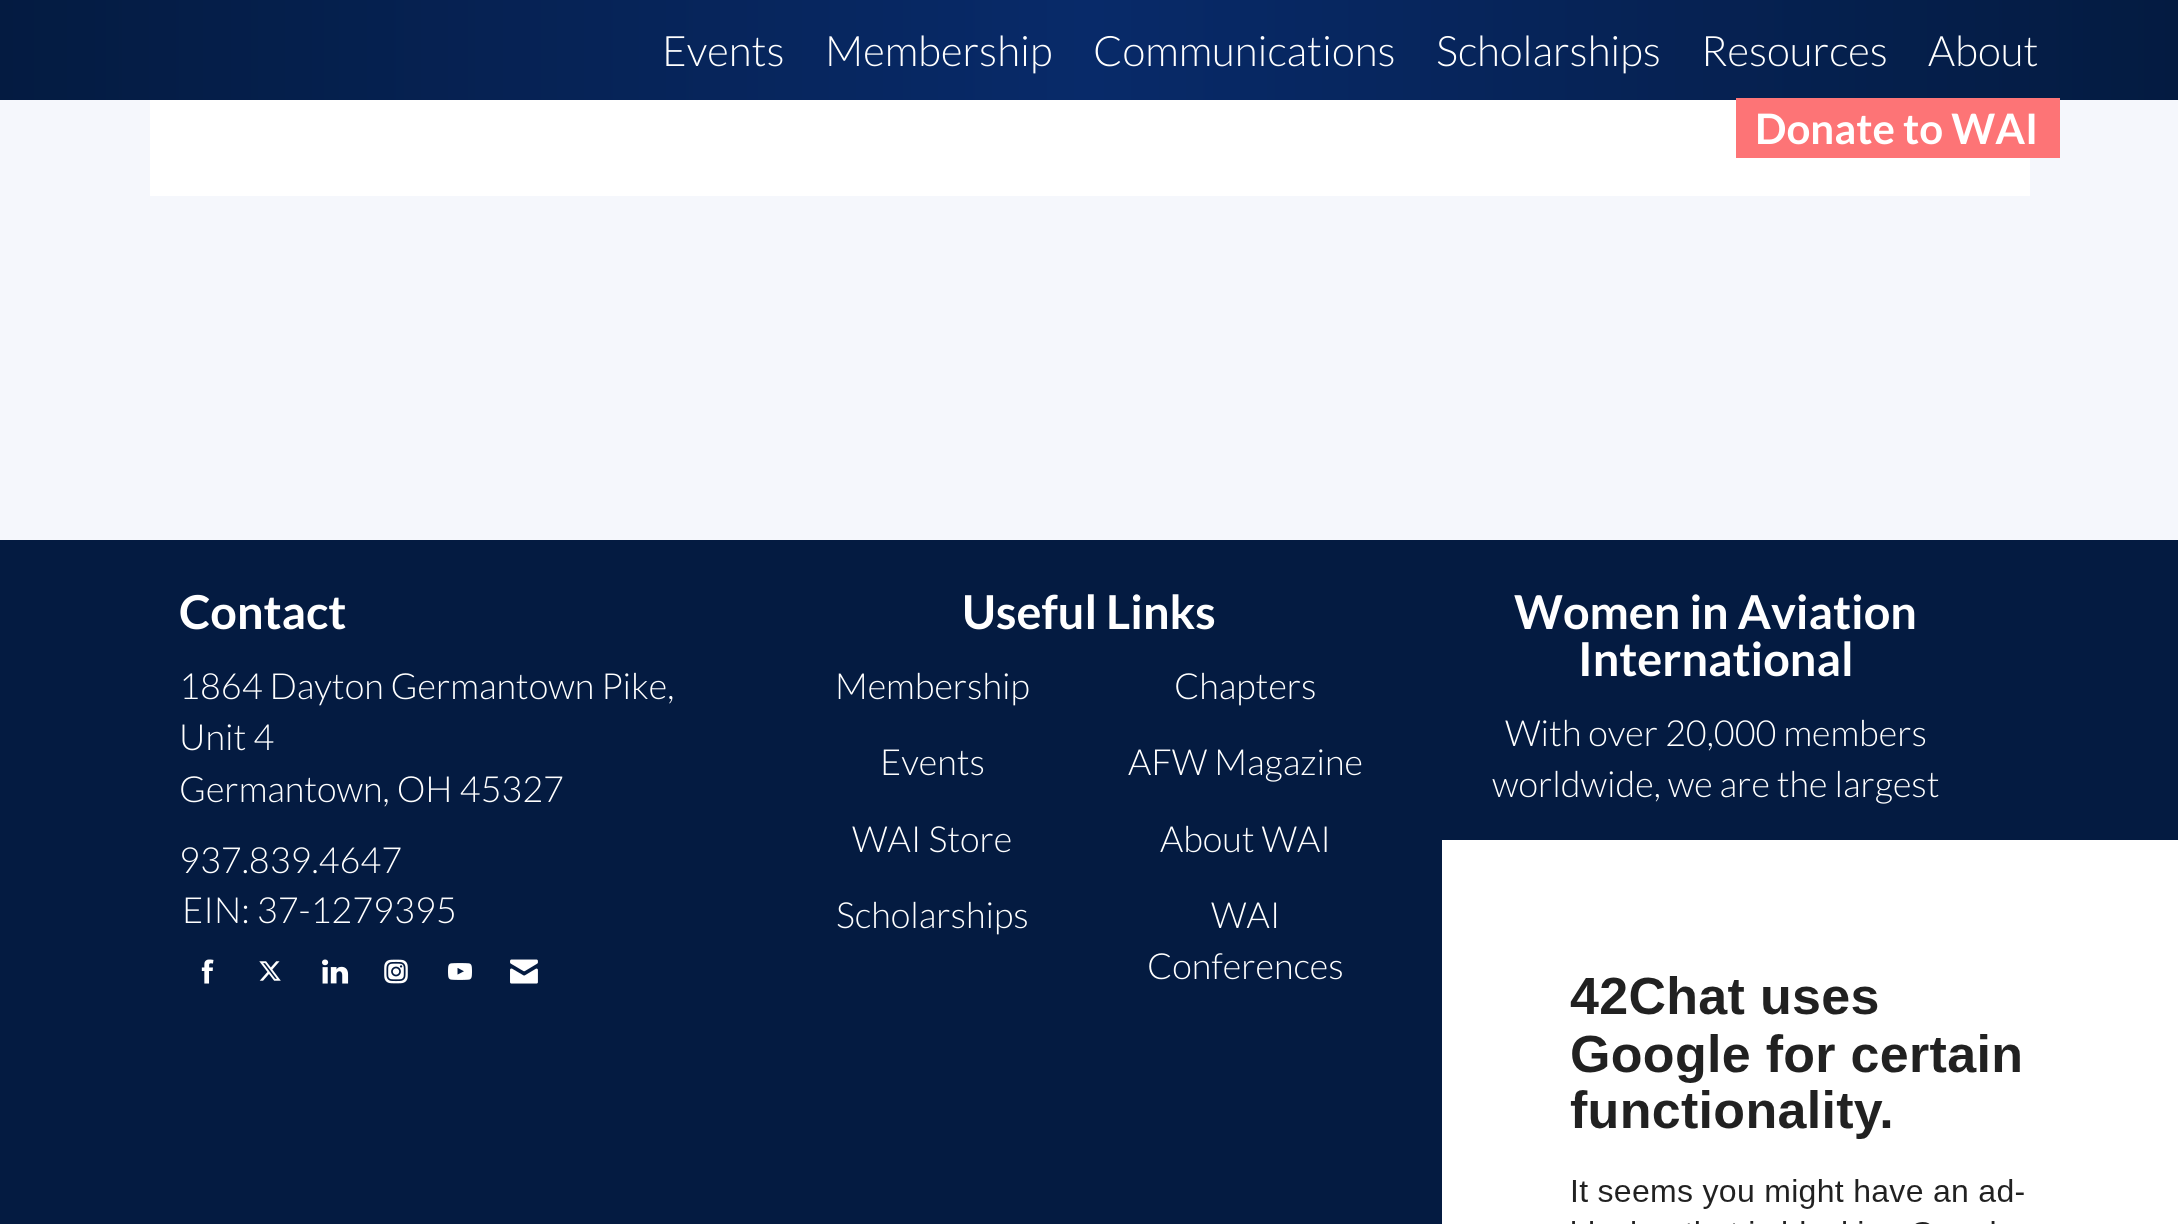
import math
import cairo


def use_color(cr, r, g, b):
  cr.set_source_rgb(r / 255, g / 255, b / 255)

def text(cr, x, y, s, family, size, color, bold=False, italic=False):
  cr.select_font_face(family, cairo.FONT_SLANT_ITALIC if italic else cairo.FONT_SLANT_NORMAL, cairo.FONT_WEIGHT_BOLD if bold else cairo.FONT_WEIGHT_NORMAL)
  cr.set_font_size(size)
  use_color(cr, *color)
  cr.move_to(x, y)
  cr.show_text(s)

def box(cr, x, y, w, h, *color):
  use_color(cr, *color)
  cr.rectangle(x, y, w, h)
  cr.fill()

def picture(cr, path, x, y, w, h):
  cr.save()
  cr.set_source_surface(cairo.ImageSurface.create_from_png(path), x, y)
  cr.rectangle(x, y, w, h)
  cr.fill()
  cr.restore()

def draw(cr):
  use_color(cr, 245, 247, 252)
  cr.paint()
  gradient = cairo.LinearGradient(0, 50, 2178, 50)
  gradient.add_color_stop_rgba(0, 0.016, 0.106, 0.255, 1)
  gradient.add_color_stop_rgba(0.5, 0.031, 0.165, 0.412, 1)
  gradient.add_color_stop_rgba(1, 0.016, 0.106, 0.255, 1)
  cr.set_source(gradient)
  cr.rectangle(0, 0, 2178, 100)
  cr.fill()
  box(cr, 150, 100, 1880, 96, 255, 255, 255)
  box(cr, 1736, 98, 324, 60, 253, 116, 118)
  box(cr, 0, 540, 2178, 684, 4, 27, 65)
  picture(cr, "img_01.png", 201, 959, 13, 25)
  picture(cr, "img_02.png", 259, 961, 22, 20)
  picture(cr, "img_03.png", 322, 959, 27, 25)
  picture(cr, "img_04.png", 384, 959, 24, 25)
  picture(cr, "img_05.png", 448, 963, 24, 17)
  picture(cr, "img_06.png", 510, 959, 28, 25)
  picture(cr, "img_07.png", 1442, 840, 736, 384)
  text(cr, 662, 66, "Events", "Lato Light", 42, (255, 255, 255))
  text(cr, 825, 66, "Membership", "Lato Light", 42, (255, 255, 255))
  text(cr, 1093, 66, "Communications", "Lato Light", 42, (255, 255, 255))
  text(cr, 1436, 66, "Scholarships", "Lato Light", 42, (255, 255, 255))
  text(cr, 1701, 66, "Resources", "Lato Light", 42, (255, 255, 255))
  text(cr, 1928, 66, "About", "Lato Light", 42, (255, 255, 255))
  text(cr, 1755, 144, "Donate to WAI", "Lato", 42, (255, 255, 255), bold=True)
  text(cr, 179, 629, "Contact", "Lato", 46.75, (255, 255, 255), bold=True)
  text(cr, 179, 699, "1864 Dayton Germantown Pike,", "Lato Light", 36, (255, 255, 255))
  text(cr, 179, 750, "Unit 4", "Lato Light", 36, (255, 255, 255))
  text(cr, 179, 802, "Germantown, OH 45327", "Lato Light", 36, (255, 255, 255))
  text(cr, 179, 873, "937.839.4647", "Lato Light", 36, (255, 255, 255))
  text(cr, 182, 923, "EIN: 37-1279395", "Lato Light", 36, (255, 255, 255))
  text(cr, 962, 629, "Useful Links", "Lato", 46.75, (255, 255, 255), bold=True)
  text(cr, 835, 699, "Membership", "Lato Light", 36, (255, 255, 255))
  text(cr, 880, 775, "Events", "Lato Light", 36, (255, 255, 255))
  text(cr, 852, 852, "WAI Store", "Lato Light", 36, (255, 255, 255))
  text(cr, 836, 928, "Scholarships", "Lato Light", 36, (255, 255, 255))
  text(cr, 1174, 699, "Chapters", "Lato Light", 36, (255, 255, 255))
  text(cr, 1128, 775, "AFW Magazine", "Lato Light", 36, (255, 255, 255))
  text(cr, 1160, 852, "About WAI", "Lato Light", 36, (255, 255, 255))
  text(cr, 1211, 928, "WAI", "Lato Light", 36, (255, 255, 255))
  text(cr, 1147, 979, "Conferences", "Lato Light", 36, (255, 255, 255))
  text(cr, 1514, 629, "Women in Aviation", "Lato", 46.75, (255, 255, 255), bold=True)
  text(cr, 1578, 676, "International", "Lato", 46.75, (255, 255, 255), bold=True)
  text(cr, 1505, 746, "With over 20,000 members", "Lato Light", 36, (255, 255, 255))
  text(cr, 1492, 797, "worldwide, we are the largest", "Lato Light", 36, (255, 255, 255))


surface = cairo.ImageSurface(cairo.FORMAT_RGB24, 2178, 1224)
cr = cairo.Context(surface)
options = cairo.FontOptions()
options.set_hint_metrics(cairo.HINT_METRICS_OFF)
options.set_hint_style(cairo.HINT_STYLE_NONE)
cr.set_font_options(options)
cr.set_miter_limit(4)
draw(cr)
surface.write_to_png("out.png")
